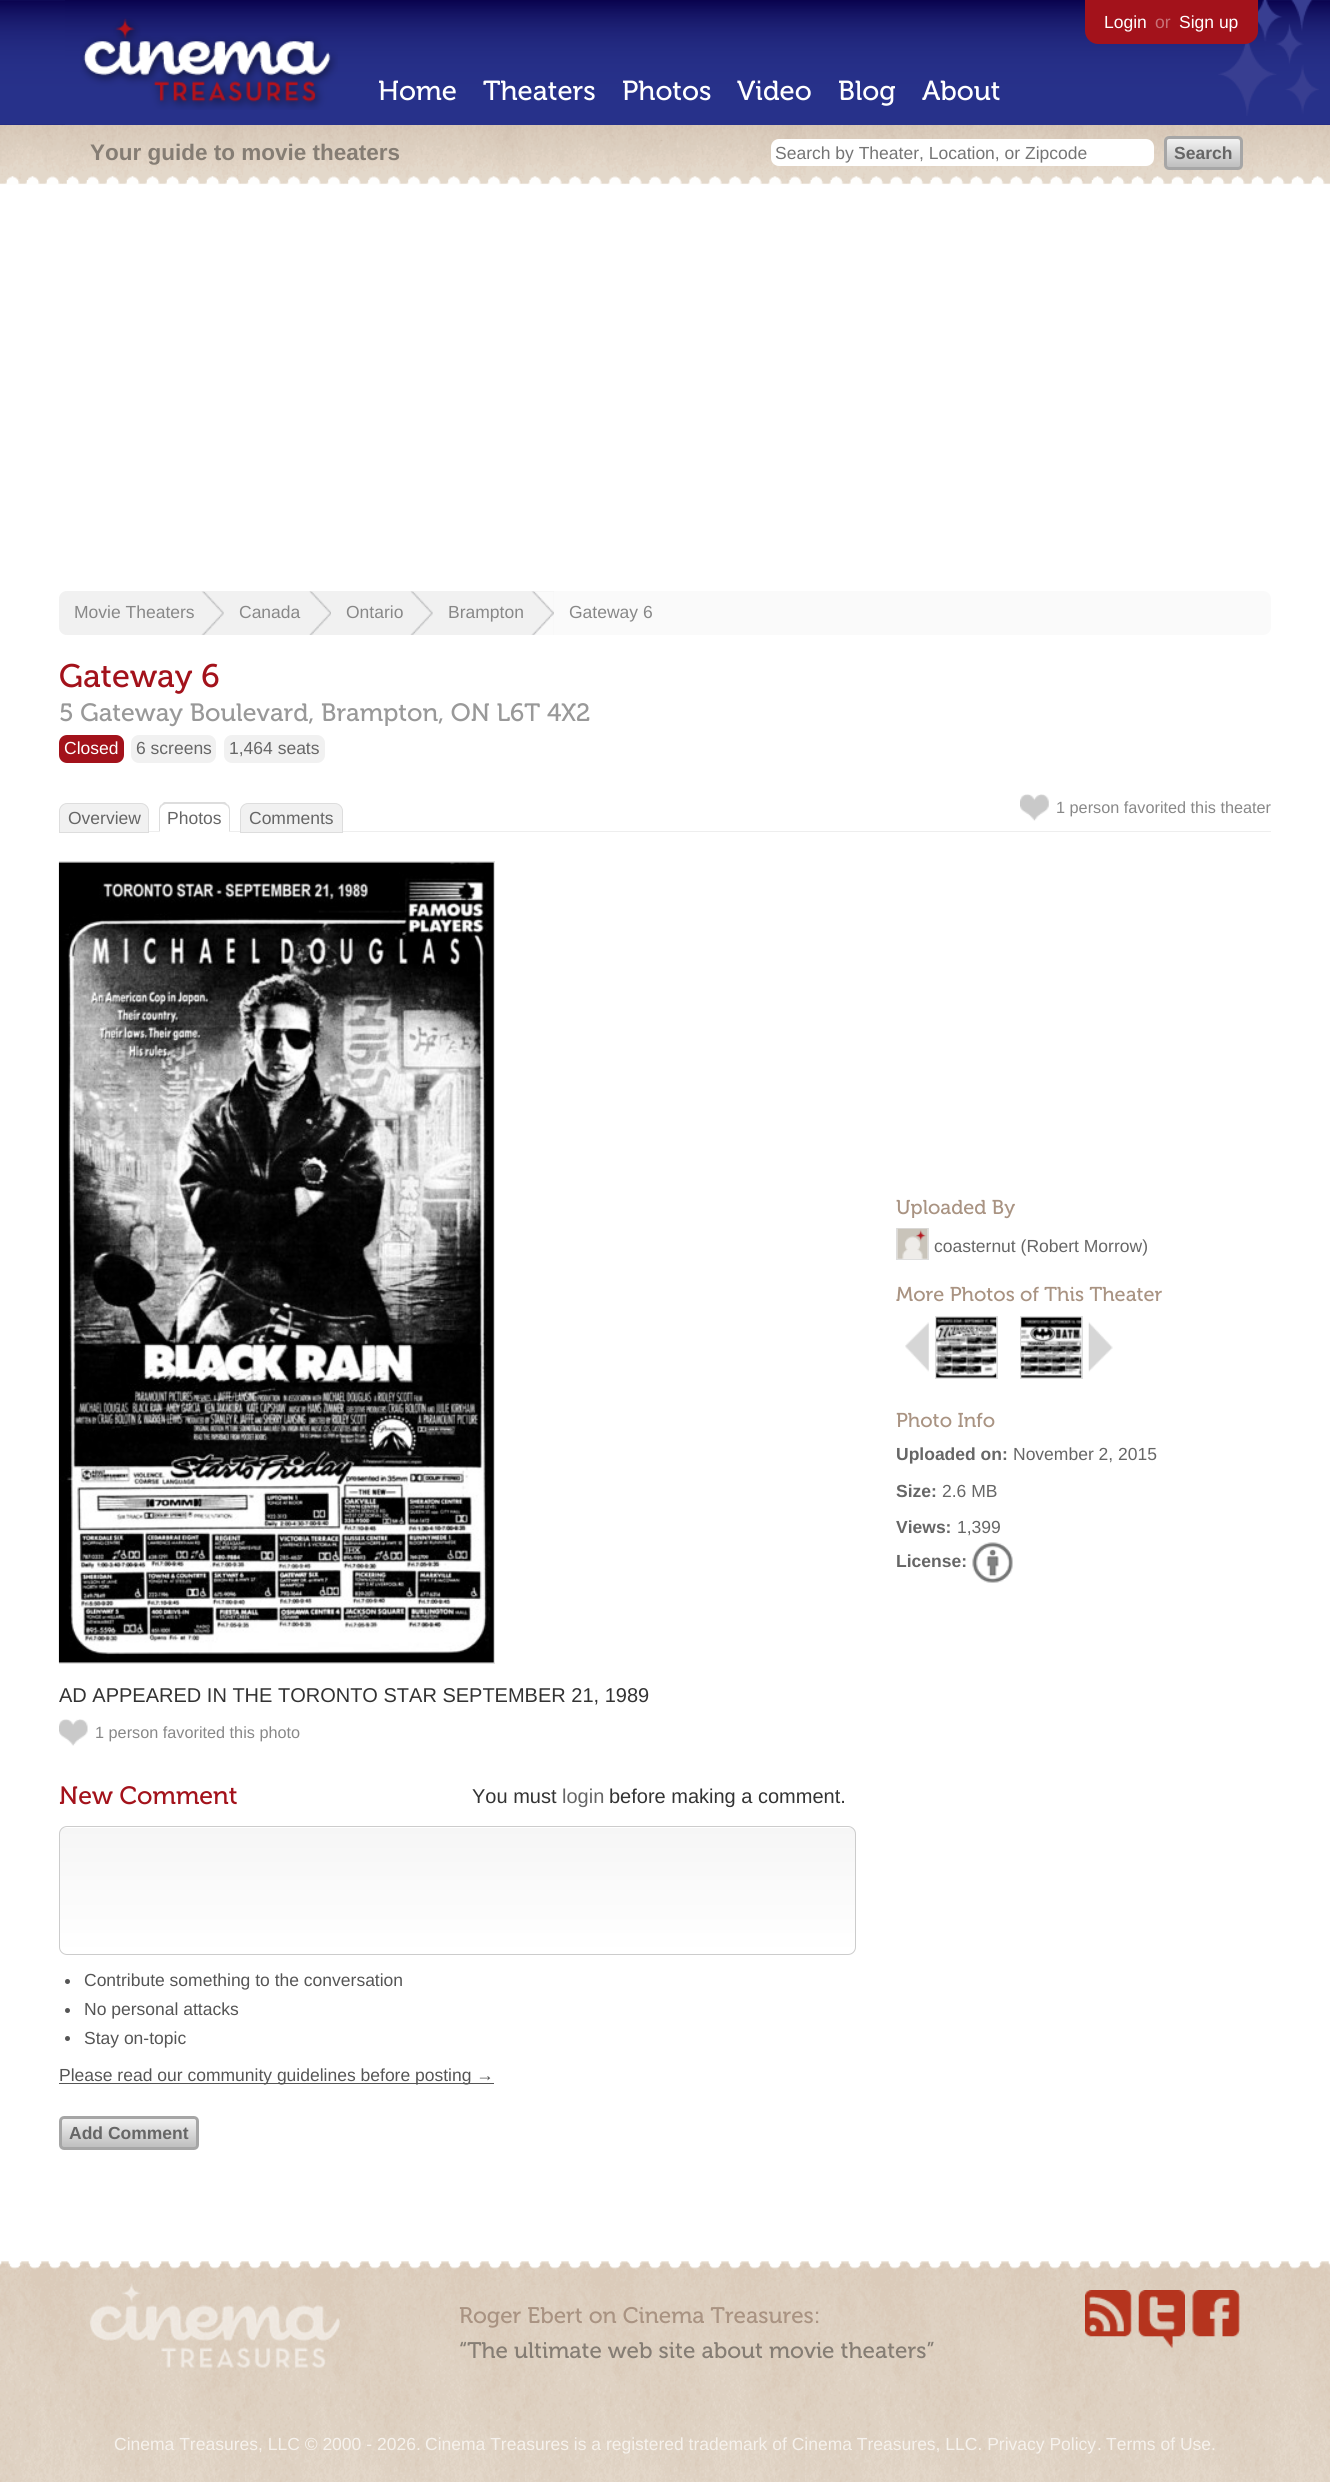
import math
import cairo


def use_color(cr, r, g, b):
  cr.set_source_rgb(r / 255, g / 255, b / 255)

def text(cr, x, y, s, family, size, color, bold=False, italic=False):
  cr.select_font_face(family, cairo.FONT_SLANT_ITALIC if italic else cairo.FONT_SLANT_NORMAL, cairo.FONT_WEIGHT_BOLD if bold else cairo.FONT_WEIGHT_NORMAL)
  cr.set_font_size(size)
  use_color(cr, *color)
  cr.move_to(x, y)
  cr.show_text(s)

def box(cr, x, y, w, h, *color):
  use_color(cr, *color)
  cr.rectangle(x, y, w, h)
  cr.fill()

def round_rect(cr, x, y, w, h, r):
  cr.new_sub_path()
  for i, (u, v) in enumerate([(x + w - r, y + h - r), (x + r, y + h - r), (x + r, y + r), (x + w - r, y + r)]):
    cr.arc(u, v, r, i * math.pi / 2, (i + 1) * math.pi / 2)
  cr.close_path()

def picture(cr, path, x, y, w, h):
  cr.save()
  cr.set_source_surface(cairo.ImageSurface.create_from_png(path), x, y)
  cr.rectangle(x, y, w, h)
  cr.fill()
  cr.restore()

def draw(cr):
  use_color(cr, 255, 255, 255)
  cr.paint()
  picture(cr, "img_01.png", 0, 0, 1330, 125)
  picture(cr, "img_02.png", 65, 0, 1200, 125)
  picture(cr, "img_03.png", 80, 18, 258, 92)
  picture(cr, "img_04.png", 1218, 0, 101, 116)
  use_color(cr, 163, 18, 27)
  cr.new_path()
  cr.move_to(1085, 0)
  cr.line_to(1258, 0)
  cr.line_to(1258, 31)
  cr.curve_to(1258, 38, 1252, 44, 1245, 44)
  cr.line_to(1098, 44)
  cr.curve_to(1091, 44, 1085, 38, 1085, 31)
  cr.close_path()
  cr.fill()
  picture(cr, "img_05.png", 0, 125, 1330, 60)
  use_color(cr, 255, 255, 255)
  round_rect(cr, 771, 139, 383, 27, 8)
  cr.fill()
  gradient = cairo.LinearGradient(1203, 139, 1203, 168)
  gradient.add_color_stop_rgba(0, 0.949, 0.949, 0.949, 1)
  gradient.add_color_stop_rgba(1, 0.741, 0.741, 0.741, 1)
  cr.set_source(gradient)
  round_rect(cr, 1166, 139, 74, 29, 2.5)
  cr.fill()
  round_rect(cr, 1165.5, 137.5, 76, 31, 3.5)
  use_color(cr, 166, 166, 166)
  cr.set_line_width(3)
  cr.stroke()
  use_color(cr, 250, 250, 250)
  round_rect(cr, 59, 591, 1212, 44, 8)
  cr.fill()
  use_color(cr, 241, 241, 241)
  cr.new_path()
  cr.move_to(67, 591)
  cr.line_to(224, 591)
  cr.line_to(224, 635)
  cr.line_to(67, 635)
  cr.curve_to(62.5, 635, 59, 631.5, 59, 627)
  cr.line_to(59, 599)
  cr.curve_to(59, 594.5, 62.5, 591, 67, 591)
  cr.close_path()
  cr.fill()
  picture(cr, "img_06.png", 201, 591, 23, 44)
  box(cr, 224, 591, 330, 44, 241, 241, 241)
  picture(cr, "img_07.png", 309, 591, 22, 44)
  picture(cr, "img_08.png", 410, 591, 23, 44)
  picture(cr, "img_09.png", 531, 591, 23, 44)
  use_color(cr, 163, 18, 27)
  round_rect(cr, 59, 735, 65, 28, 8)
  cr.fill()
  use_color(cr, 241, 241, 241)
  round_rect(cr, 131, 735, 85, 28, 8)
  cr.fill()
  round_rect(cr, 224, 735, 101, 28, 8)
  cr.fill()
  box(cr, 149, 831, 1122, 1, 238, 238, 238)
  use_color(cr, 241, 241, 241)
  cr.new_path()
  cr.move_to(67, 803.5)
  cr.line_to(141, 803.5)
  cr.curve_to(145, 803.5, 148.5, 807, 148.5, 811)
  cr.line_to(148.5, 832.5)
  cr.line_to(59.5, 832.5)
  cr.line_to(59.5, 811)
  cr.curve_to(59.5, 807, 63, 803.5, 67, 803.5)
  cr.close_path()
  cr.fill_preserve()
  use_color(cr, 221, 221, 221)
  cr.set_line_width(1)
  cr.stroke()
  use_color(cr, 255, 255, 255)
  cr.new_path()
  cr.move_to(167, 803)
  cr.line_to(222, 803)
  cr.curve_to(226.5, 803, 230, 806.5, 230, 811)
  cr.line_to(230, 833)
  cr.line_to(159, 833)
  cr.line_to(159, 811)
  cr.curve_to(159, 806.5, 162.5, 803, 167, 803)
  cr.close_path()
  cr.fill()
  use_color(cr, 221, 221, 221)
  cr.new_path()
  cr.move_to(166, 804)
  cr.curve_to(165, 804, 163, 805, 162, 806)
  cr.line_to(161, 805)
  cr.line_to(164, 802)
  cr.line_to(225, 802)
  cr.line_to(228, 805)
  cr.line_to(227, 806)
  cr.curve_to(226, 805, 224, 804, 222, 804)
  cr.close_path()
  cr.fill()
  cr.new_path()
  cr.move_to(230, 832)
  cr.line_to(230, 810)
  cr.curve_to(230, 808, 229.5, 806, 228, 804.5)
  cr.line_to(227, 805.5)
  cr.curve_to(228, 807, 229, 808.5, 229, 810)
  cr.line_to(229, 831)
  cr.line_to(228.5, 831)
  cr.line_to(229.5, 832)
  cr.close_path()
  cr.fill()
  use_color(cr, 255, 255, 255)
  cr.new_path()
  cr.move_to(230, 832)
  cr.line_to(159, 832)
  cr.line_to(160, 831)
  cr.line_to(228, 831)
  cr.close_path()
  cr.fill()
  use_color(cr, 221, 221, 221)
  cr.new_path()
  cr.move_to(159, 832)
  cr.line_to(159, 810)
  cr.curve_to(159, 808, 159.5, 806, 161, 804.5)
  cr.line_to(162, 806)
  cr.curve_to(161, 807, 160, 808.5, 160, 810)
  cr.line_to(160, 831)
  cr.close_path()
  cr.fill()
  use_color(cr, 241, 241, 241)
  cr.new_path()
  cr.move_to(248, 803.5)
  cr.line_to(335, 803.5)
  cr.curve_to(339, 803.5, 342.5, 807, 342.5, 811)
  cr.line_to(342.5, 832.5)
  cr.line_to(240.5, 832.5)
  cr.line_to(240.5, 811)
  cr.curve_to(240.5, 807, 244, 803.5, 248, 803.5)
  cr.close_path()
  cr.fill_preserve()
  use_color(cr, 221, 221, 221)
  cr.stroke()
  picture(cr, "img_10.png", 1020, 794, 29, 27)
  use_color(cr, 238, 238, 238)
  cr.rectangle(896.5, 1228.5, 32, 31)
  cr.fill_preserve()
  use_color(cr, 221, 221, 221)
  cr.stroke()
  picture(cr, "img_11.png", 897, 1228, 31, 31)
  use_color(cr, 238, 238, 238)
  cr.rectangle(935.5, 1316.5, 62, 62)
  cr.fill_preserve()
  use_color(cr, 221, 221, 221)
  cr.stroke()
  picture(cr, "img_12.png", 905, 1322, 24, 50)
  picture(cr, "img_13.png", 936, 1317, 61, 61)
  use_color(cr, 238, 238, 238)
  cr.rectangle(1020.5, 1316.5, 62, 62)
  cr.fill_preserve()
  use_color(cr, 221, 221, 221)
  cr.stroke()
  picture(cr, "img_14.png", 1021, 1317, 61, 61)
  picture(cr, "img_15.png", 1088, 1322, 25, 50)
  picture(cr, "img_16.png", 972, 1542, 41, 41)
  box(cr, 59, 863, 435, 800, 238, 238, 238)
  picture(cr, "img_17.png", 58, 862, 436, 801)
  cr.save()
  cr.rectangle(59, 215, 1212, 2203)
  cr.clip()
  cr.rectangle(58.5, 861.5, 436, 802)
  use_color(cr, 221, 221, 221)
  cr.stroke()
  cr.restore()
  picture(cr, "img_18.png", 59, 1719, 29, 27)
  cr.save()
  round_rect(cr, 59, 1826, 797, 129, 8)
  cr.clip()
  gradient = cairo.LinearGradient(458, 1828, 458, 1954)
  gradient.add_color_stop_rgba(0, 0.965, 0.965, 0.965, 1)
  gradient.add_color_stop_rgba(1, 1, 1, 1, 1)
  cr.set_source(gradient)
  cr.rectangle(59, 1828, 797, 126)
  cr.fill()
  cr.restore()
  round_rect(cr, 59.5, 1826.5, 796, 128, 7.5)
  use_color(cr, 204, 204, 204)
  cr.stroke()
  use_color(cr, 85, 85, 85)
  cr.arc(67.5, 1981.5, 2.5, 0, 2 * math.pi)
  cr.fill()
  cr.arc(67.5, 2010.5, 2.5, 0, 2 * math.pi)
  cr.fill()
  cr.arc(67.5, 2038.5, 2.5, 0, 2 * math.pi)
  cr.fill()
  box(cr, 59, 2083, 435, 1, 85, 85, 85)
  gradient = cairo.LinearGradient(129, 2119, 129, 2148)
  gradient.add_color_stop_rgba(0, 0.949, 0.949, 0.949, 1)
  gradient.add_color_stop_rgba(1, 0.741, 0.741, 0.741, 1)
  cr.set_source(gradient)
  round_rect(cr, 61, 2119, 135, 29, 2.5)
  cr.fill()
  round_rect(cr, 60.5, 2117.5, 137, 31, 3.5)
  use_color(cr, 166, 166, 166)
  cr.set_line_width(3)
  cr.stroke()
  picture(cr, "img_19.png", 0, 2261, 1330, 221)
  picture(cr, "img_20.png", 90, 2283, 250, 85)
  picture(cr, "img_21.png", 1085, 2290, 47, 47)
  picture(cr, "img_22.png", 1138, 2290, 47, 58)
  picture(cr, "img_23.png", 1192, 2290, 48, 47)
  text(cr, 378, 100, "Home", "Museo", 27.5, (255, 255, 255))
  text(cr, 483, 100, "Theaters", "Museo", 27.5, (255, 255, 255))
  text(cr, 622, 100, "Photos", "Museo", 27.5, (255, 255, 255))
  text(cr, 737, 100, "Video", "Museo", 27.5, (255, 255, 255))
  text(cr, 838, 100, "Blog", "Museo", 27.5, (255, 255, 255))
  text(cr, 922, 100, "About", "Museo", 27.5, (255, 255, 255))
  text(cr, 1104, 28, "Login", "Liberation Sans", 17.5, (255, 255, 255))
  text(cr, 1155, 28, "or", "Liberation Sans", 17.5, (200, 113, 118))
  text(cr, 1179, 28, "Sign up", "Liberation Sans", 17.5, (255, 255, 255))
  text(cr, 90, 160, "Your guide to movie theaters", "Liberation Sans", 22.5, (133, 125, 116), bold=True)
  text(cr, 775, 159, "Search by Theater, Location, or Zipcode", "Liberation Sans", 17.5, (117, 117, 117))
  text(cr, 1174, 159, "Search", "Liberation Sans", 17.5, (102, 102, 102), bold=True)
  text(cr, 74, 618, "Movie Theaters", "Liberation Sans", 17.5, (136, 136, 136))
  text(cr, 239, 618, "Canada", "Liberation Sans", 17.5, (136, 136, 136))
  text(cr, 346, 618, "Ontario", "Liberation Sans", 17.5, (136, 136, 136))
  text(cr, 448, 618, "Brampton", "Liberation Sans", 17.5, (136, 136, 136))
  text(cr, 569, 618, "Gateway 6", "Liberation Sans", 17.5, (136, 136, 136))
  text(cr, 59, 687, "Gateway 6", "Museo", 32.5, (163, 18, 27))
  text(cr, 59, 721, "5 Gateway Boulevard, Brampton, ON L6T 4X2", "Museo", 25, (153, 153, 153))
  text(cr, 64, 754, "Closed", "Liberation Sans", 17.5, (255, 255, 255))
  text(cr, 136, 754, "6 screens", "Liberation Sans", 17.5, (102, 102, 102))
  text(cr, 229, 754, "1,464 seats", "Liberation Sans", 17.5, (102, 102, 102))
  text(cr, 68, 824, "Overview", "Liberation Sans", 17.5, (102, 102, 102))
  text(cr, 167, 824, "Photos", "Liberation Sans", 17.5, (102, 102, 102))
  text(cr, 249, 824, "Comments", "Liberation Sans", 17.5, (102, 102, 102))
  text(cr, 1056, 813, "1 person favorited this theater", "Liberation Sans", 16.25, (136, 136, 136))
  text(cr, 896, 1214, "Uploaded By", "Museo", 20, (169, 147, 130))
  text(cr, 934, 1252, "coasternut (Robert Morrow)", "Liberation Sans", 17.5, (102, 102, 102))
  text(cr, 896, 1301, "More Photos of This Theater", "Museo", 20, (169, 147, 130))
  text(cr, 896, 1427, "Photo Info", "Museo", 20, (169, 147, 130))
  text(cr, 896, 1460, "Uploaded on:", "Liberation Sans", 17.5, (102, 102, 102), bold=True)
  text(cr, 1013, 1460, "November 2, 2015", "Liberation Sans", 17.5, (102, 102, 102))
  text(cr, 896, 1497, "Size:", "Liberation Sans", 17.5, (102, 102, 102), bold=True)
  text(cr, 942, 1497, "2.6 MB", "Liberation Sans", 17.5, (102, 102, 102))
  text(cr, 896, 1533, "Views:", "Liberation Sans", 17.5, (102, 102, 102), bold=True)
  text(cr, 957, 1533, "1,399", "Liberation Sans", 17.5, (102, 102, 102))
  text(cr, 896, 1567, "License:", "Liberation Sans", 17.5, (102, 102, 102), bold=True)
  text(cr, 59, 1702, "AD APPEARED IN THE TORONTO STAR SEPTEMBER 21, 1989", "Liberation Sans", 20, (51, 51, 51))
  text(cr, 95, 1738, "1 person favorited this photo", "Liberation Sans", 16.25, (136, 136, 136))
  text(cr, 59, 1804, "New Comment", "Museo", 25, (163, 18, 27))
  text(cr, 472, 1803, "You must", "Liberation Sans", 20, (51, 51, 51))
  text(cr, 562, 1803, "login", "Liberation Sans", 20, (102, 102, 102))
  text(cr, 609, 1803, "before making a comment.", "Liberation Sans", 20, (51, 51, 51))
  text(cr, 84, 1986, "Contribute something to the conversation", "Liberation Sans", 17.5, (85, 85, 85))
  text(cr, 84, 2015, "No personal attacks", "Liberation Sans", 17.5, (85, 85, 85))
  text(cr, 84, 2044, "Stay on-topic", "Liberation Sans", 17.5, (85, 85, 85))
  text(cr, 59, 2081, "Please read our community guidelines before posting →", "Liberation Sans", 17.5, (85, 85, 85))
  text(cr, 69, 2139, "Add Comment", "Liberation Sans", 17.5, (102, 102, 102), bold=True)
  text(cr, 459, 2323, "Roger Ebert on Cinema Treasures:", "Museo", 22.5, (169, 147, 130))
  text(cr, 459, 2358, "“The ultimate web site about movie theaters”", "Museo", 22.5, (133, 125, 116))
  text(cr, 114, 2450, "Cinema Treasures, LLC © 2000 -", "Liberation Sans", 17.5, (246, 242, 237))
  text(cr, 377, 2450, "2026.", "Liberation Sans", 17.5, (246, 242, 237))
  text(cr, 425, 2450, "Cinema Treasures is a registered trademark of Cinema Treasures, LLC. Privacy Policy", "Liberation Sans", 17.5, (246, 242, 237))
  text(cr, 1097, 2450, ".", "Liberation Sans", 17.5, (246, 242, 237))
  text(cr, 1106, 2450, "Terms of Use", "Liberation Sans", 17.5, (246, 242, 237))
  text(cr, 1211, 2450, ".", "Liberation Sans", 17.5, (246, 242, 237))


surface = cairo.ImageSurface(cairo.FORMAT_RGB24, 1330, 2482)
cr = cairo.Context(surface)
options = cairo.FontOptions()
options.set_hint_metrics(cairo.HINT_METRICS_OFF)
options.set_hint_style(cairo.HINT_STYLE_NONE)
cr.set_font_options(options)
cr.set_miter_limit(4)
draw(cr)
surface.write_to_png("out.png")
